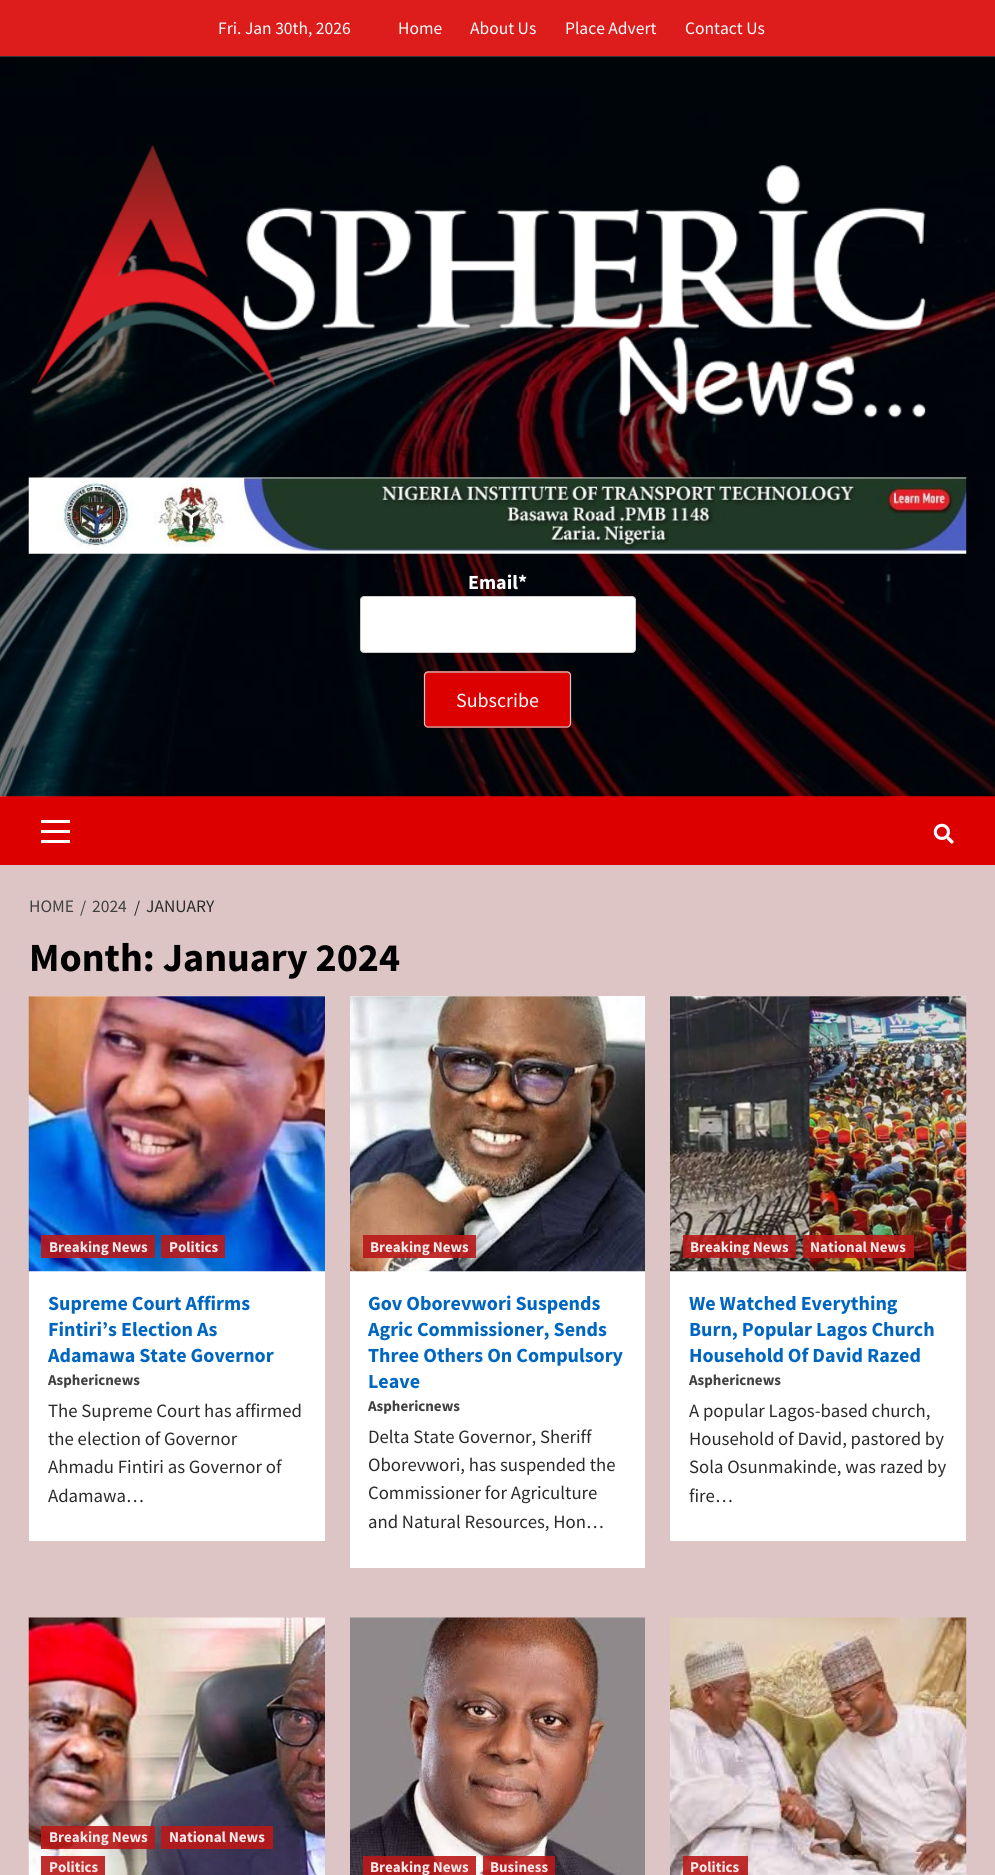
import math
import cairo


def use_color(cr, r, g, b):
  cr.set_source_rgb(r / 255, g / 255, b / 255)

def text(cr, x, y, s, family, size, color, bold=False, italic=False):
  cr.select_font_face(family, cairo.FONT_SLANT_ITALIC if italic else cairo.FONT_SLANT_NORMAL, cairo.FONT_WEIGHT_BOLD if bold else cairo.FONT_WEIGHT_NORMAL)
  cr.set_font_size(size)
  use_color(cr, *color)
  cr.move_to(x, y)
  cr.show_text(s)

def box(cr, x, y, w, h, *color):
  use_color(cr, *color)
  cr.rectangle(x, y, w, h)
  cr.fill()

def round_rect(cr, x, y, w, h, r):
  cr.new_sub_path()
  for i, (u, v) in enumerate([(x + w - r, y + h - r), (x + r, y + h - r), (x + r, y + r), (x + w - r, y + r)]):
    cr.arc(u, v, r, i * math.pi / 2, (i + 1) * math.pi / 2)
  cr.close_path()

def picture(cr, path, x, y, w, h):
  cr.save()
  cr.set_source_surface(cairo.ImageSurface.create_from_png(path), x, y)
  cr.rectangle(x, y, w, h)
  cr.fill()
  cr.restore()

def draw(cr):
  use_color(cr, 221, 197, 197)
  cr.paint()
  box(cr, 0, 0, 995, 56, 221, 28, 28)
  box(cr, 0, 796, 995, 69, 221, 0, 0)
  picture(cr, "img_01.png", 0, 56, 995, 741)
  picture(cr, "img_02.png", 36, 145, 890, 273)
  picture(cr, "img_03.png", 28, 477, 939, 77)
  use_color(cr, 255, 255, 255)
  round_rect(cr, 360.5, 596.5, 275, 56, 3.5)
  cr.fill_preserve()
  use_color(cr, 204, 204, 204)
  cr.set_line_width(1)
  cr.stroke()
  use_color(cr, 221, 0, 0)
  round_rect(cr, 424, 671, 147, 57, 4)
  cr.fill()
  cr.new_path()
  cr.move_to(569.5, 726)
  cr.line_to(567.5, 727)
  cr.line_to(427.5, 727)
  cr.line_to(425.5, 726)
  use_color(cr, 187, 187, 187)
  cr.set_line_width(1.2)
  cr.stroke()
  cr.new_path()
  cr.move_to(425.5, 726)
  cr.line_to(424.5, 724)
  cr.line_to(424.5, 675)
  cr.line_to(425.5, 673)
  cr.line_to(427.5, 672)
  cr.line_to(567.5, 672)
  cr.line_to(569.5, 673)
  cr.line_to(570.5, 675)
  cr.line_to(570.5, 724)
  cr.line_to(569.5, 726)
  use_color(cr, 204, 204, 204)
  cr.stroke()
  box(cr, 41, 830, 29, 3, 255, 255, 255)
  box(cr, 41, 820, 29, 3, 255, 255, 255)
  box(cr, 41, 840, 29, 3, 255, 255, 255)
  picture(cr, "img_04.png", 933, 823, 21, 21)
  box(cr, 29, 996, 296, 545, 255, 255, 255)
  picture(cr, "img_05.png", 28, 996, 297, 276)
  cr.set_source_rgba(0.733, 0.098, 0.098, 0.9)
  cr.rectangle(41, 1235, 114, 23)
  cr.fill()
  cr.rectangle(161, 1235, 64, 23)
  cr.fill()
  box(cr, 350, 996, 295, 572, 255, 255, 255)
  picture(cr, "img_06.png", 350, 996, 295, 276)
  cr.set_source_rgba(0.733, 0.098, 0.098, 0.9)
  cr.rectangle(363, 1235, 113, 23)
  cr.fill()
  box(cr, 670, 996, 296, 545, 255, 255, 255)
  picture(cr, "img_07.png", 670, 996, 297, 276)
  cr.set_source_rgba(0.733, 0.098, 0.098, 0.9)
  cr.rectangle(683, 1235, 113, 23)
  cr.fill()
  cr.rectangle(803, 1235, 111, 23)
  cr.fill()
  picture(cr, "img_08.png", 28, 1617, 297, 258)
  cr.rectangle(41, 1826, 114, 23)
  cr.fill()
  cr.rectangle(161, 1826, 112, 23)
  cr.fill()
  cr.rectangle(41, 1856, 64, 19)
  cr.fill()
  picture(cr, "img_09.png", 350, 1617, 295, 258)
  cr.rectangle(363, 1856, 113, 19)
  cr.fill()
  cr.rectangle(483, 1856, 72, 19)
  cr.fill()
  picture(cr, "img_10.png", 670, 1617, 297, 258)
  cr.rectangle(683, 1856, 65, 19)
  cr.fill()
  text(cr, 218, 34, "Fri. Jan 30th, 2026", "Source Sans Pro", 17.5, (255, 255, 255))
  text(cr, 398, 34, "Home", "Source Sans Pro", 17.5, (255, 255, 255))
  text(cr, 470, 34, "About Us", "Source Sans Pro", 17.5, (255, 255, 255))
  text(cr, 565, 34, "Place Advert", "Source Sans Pro", 17.5, (255, 255, 255))
  text(cr, 685, 34, "Contact Us", "Source Sans Pro", 17.5, (255, 255, 255))
  text(cr, 468, 589, "Email*", "Source Sans Pro", 20, (255, 255, 255), bold=True)
  text(cr, 456, 707, "Subscribe", "Source Sans Pro", 20, (255, 255, 255))
  text(cr, 29, 912, "HOME", "Source Sans Pro", 17.5, (64, 64, 64))
  text(cr, 80, 913, "/", "Source Sans Pro", 17.5, (64, 64, 64))
  text(cr, 92, 912, "2024", "Source Sans Pro", 17.5, (64, 64, 64))
  text(cr, 134, 913, "/", "Source Sans Pro", 17.5, (42, 42, 42))
  text(cr, 146, 912, "JANUARY", "Source Sans Pro", 17.5, (42, 42, 42))
  text(cr, 29, 971, "Month: January 2024", "Source Sans Pro", 40, (0, 0, 0), bold=True)
  text(cr, 49, 1252, "Breaking News", "Source Sans Pro", 15, (246, 233, 234), bold=True)
  text(cr, 169, 1252, "Politics", "Source Sans Pro", 15, (246, 233, 234), bold=True)
  text(cr, 48, 1310, "Supreme Court Affirms", "Source Sans Pro", 20, (0, 102, 191), bold=True)
  text(cr, 48, 1336, "Fintiri’s Election As", "Source Sans Pro", 20, (0, 102, 191), bold=True)
  text(cr, 48, 1362, "Adamawa State Governor", "Source Sans Pro", 20, (0, 102, 191), bold=True)
  text(cr, 48, 1385, "Asphericnews", "Source Sans Pro", 15, (64, 64, 64), bold=True)
  text(cr, 48, 1417, "The Supreme Court has affirmed", "Source Sans Pro", 18.75, (42, 42, 42))
  text(cr, 48, 1445, "the election of Governor", "Source Sans Pro", 18.75, (42, 42, 42))
  text(cr, 48, 1473, "Ahmadu Fintiri as Governor of", "Source Sans Pro", 18.75, (42, 42, 42))
  text(cr, 48, 1502, "Adamawa…", "Source Sans Pro", 18.75, (42, 42, 42))
  text(cr, 370, 1252, "Breaking News", "Source Sans Pro", 15, (246, 233, 234), bold=True)
  text(cr, 368, 1310, "Gov Oborevwori Suspends", "Source Sans Pro", 20, (0, 102, 191), bold=True)
  text(cr, 368, 1336, "Agric Commissioner, Sends", "Source Sans Pro", 20, (0, 102, 191), bold=True)
  text(cr, 368, 1362, "Three Others On Compulsory", "Source Sans Pro", 20, (0, 102, 191), bold=True)
  text(cr, 368, 1388, "Leave", "Source Sans Pro", 20, (0, 102, 191), bold=True)
  text(cr, 368, 1411, "Asphericnews", "Source Sans Pro", 15, (64, 64, 64), bold=True)
  text(cr, 368, 1443, "Delta State Governor, Sheriff", "Source Sans Pro", 18.75, (42, 42, 42))
  text(cr, 368, 1471, "Oborevwori, has suspended the", "Source Sans Pro", 18.75, (42, 42, 42))
  text(cr, 368, 1499, "Commissioner for Agriculture", "Source Sans Pro", 18.75, (42, 42, 42))
  text(cr, 368, 1528, "and Natural Resources, Hon…", "Source Sans Pro", 18.75, (42, 42, 42))
  text(cr, 690, 1252, "Breaking News", "Source Sans Pro", 15, (246, 233, 234), bold=True)
  text(cr, 810, 1252, "National News", "Source Sans Pro", 15, (246, 233, 234), bold=True)
  text(cr, 689, 1310, "We Watched Everything", "Source Sans Pro", 20, (0, 102, 191), bold=True)
  text(cr, 689, 1336, "Burn, Popular Lagos Church", "Source Sans Pro", 20, (0, 102, 191), bold=True)
  text(cr, 689, 1362, "Household Of David Razed", "Source Sans Pro", 20, (0, 102, 191), bold=True)
  text(cr, 689, 1385, "Asphericnews", "Source Sans Pro", 15, (64, 64, 64), bold=True)
  text(cr, 689, 1417, "A popular Lagos-based church,", "Source Sans Pro", 18.75, (42, 42, 42))
  text(cr, 689, 1445, "Household of David, pastored by", "Source Sans Pro", 18.75, (42, 42, 42))
  text(cr, 689, 1473, "Sola Osunmakinde, was razed by", "Source Sans Pro", 18.75, (42, 42, 42))
  text(cr, 689, 1502, "fire…", "Source Sans Pro", 18.75, (42, 42, 42))
  text(cr, 49, 1842, "Breaking News", "Source Sans Pro", 15, (246, 233, 234), bold=True)
  text(cr, 169, 1842, "National News", "Source Sans Pro", 15, (246, 233, 234), bold=True)
  text(cr, 49, 1872, "Politics", "Source Sans Pro", 15, (246, 233, 234), bold=True)
  text(cr, 370, 1872, "Breaking News", "Source Sans Pro", 15, (246, 233, 234), bold=True)
  text(cr, 490, 1872, "Business", "Source Sans Pro", 15, (246, 233, 234), bold=True)
  text(cr, 690, 1872, "Politics", "Source Sans Pro", 15, (246, 233, 234), bold=True)


surface = cairo.ImageSurface(cairo.FORMAT_RGB24, 995, 1875)
cr = cairo.Context(surface)
options = cairo.FontOptions()
options.set_hint_metrics(cairo.HINT_METRICS_OFF)
options.set_hint_style(cairo.HINT_STYLE_NONE)
cr.set_font_options(options)
cr.set_miter_limit(4)
draw(cr)
surface.write_to_png("out.png")
